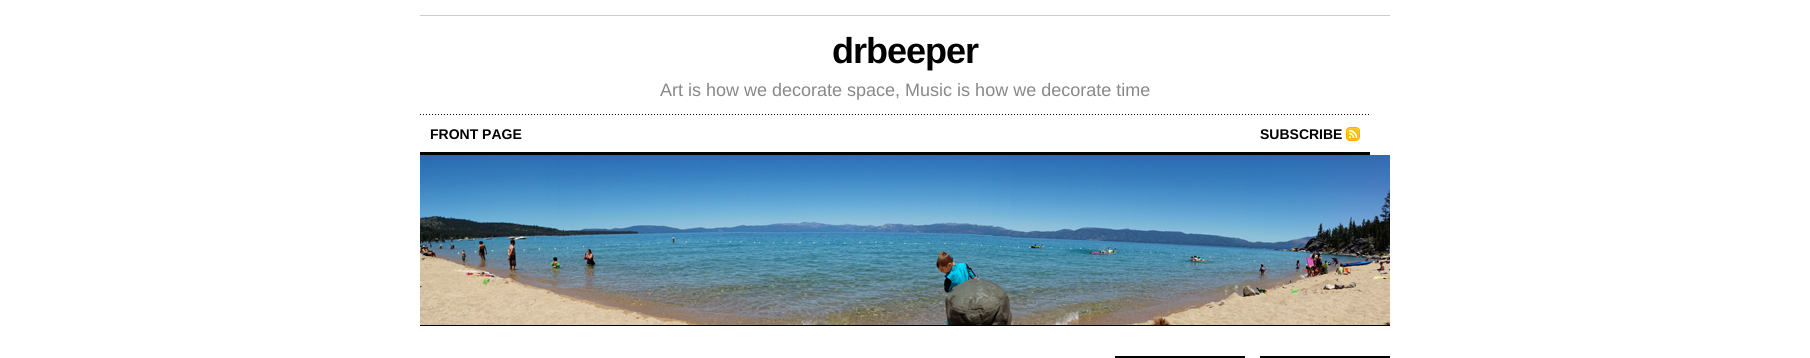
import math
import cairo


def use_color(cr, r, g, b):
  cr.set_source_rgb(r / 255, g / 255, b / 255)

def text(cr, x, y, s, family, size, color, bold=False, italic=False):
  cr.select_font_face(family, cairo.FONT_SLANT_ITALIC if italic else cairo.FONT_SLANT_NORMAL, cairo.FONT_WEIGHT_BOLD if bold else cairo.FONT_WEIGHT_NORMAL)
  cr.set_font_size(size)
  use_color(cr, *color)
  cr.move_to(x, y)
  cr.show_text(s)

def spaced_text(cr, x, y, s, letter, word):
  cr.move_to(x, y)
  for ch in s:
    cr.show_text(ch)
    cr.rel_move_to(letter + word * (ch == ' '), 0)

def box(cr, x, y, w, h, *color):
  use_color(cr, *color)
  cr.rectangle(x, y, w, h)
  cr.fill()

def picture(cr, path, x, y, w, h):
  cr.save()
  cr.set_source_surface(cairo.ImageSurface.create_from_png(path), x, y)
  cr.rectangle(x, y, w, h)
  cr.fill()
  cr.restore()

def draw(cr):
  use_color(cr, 255, 255, 255)
  cr.paint()
  box(cr, 420, 15, 970, 1, 204, 204, 204)
  picture(cr, "img_01.png", 420, 114, 949, 1)
  box(cr, 420, 152, 950, 3, 0, 0, 0)
  picture(cr, "img_02.png", 1346, 127, 14, 14)
  box(cr, 420, 325, 970, 1, 0, 0, 0)
  picture(cr, "img_03.png", 420, 155, 970, 170)
  box(cr, 1115, 356, 130, 2, 0, 0, 0)
  box(cr, 1260, 356, 130, 2, 0, 0, 0)
  cr.select_font_face("Liberation Sans", cairo.FONT_SLANT_NORMAL, cairo.FONT_WEIGHT_BOLD)
  cr.set_font_size(36)
  spaced_text(cr, 832, 63, "drbeeper", -1, 0)
  text(cr, 660, 96, "Art is how we decorate space, Music is how we decorate time", "Liberation Sans", 18, (136, 136, 136))
  text(cr, 430, 139, "FRONT PAGE", "Liberation Sans", 14, (0, 0, 0), bold=True)
  text(cr, 1260, 139, "SUBSCRIBE", "Liberation Sans", 14, (0, 0, 0), bold=True)


surface = cairo.ImageSurface(cairo.FORMAT_RGB24, 1810, 358)
cr = cairo.Context(surface)
options = cairo.FontOptions()
options.set_hint_metrics(cairo.HINT_METRICS_OFF)
options.set_hint_style(cairo.HINT_STYLE_NONE)
cr.set_font_options(options)
cr.set_miter_limit(4)
draw(cr)
surface.write_to_png("out.png")
